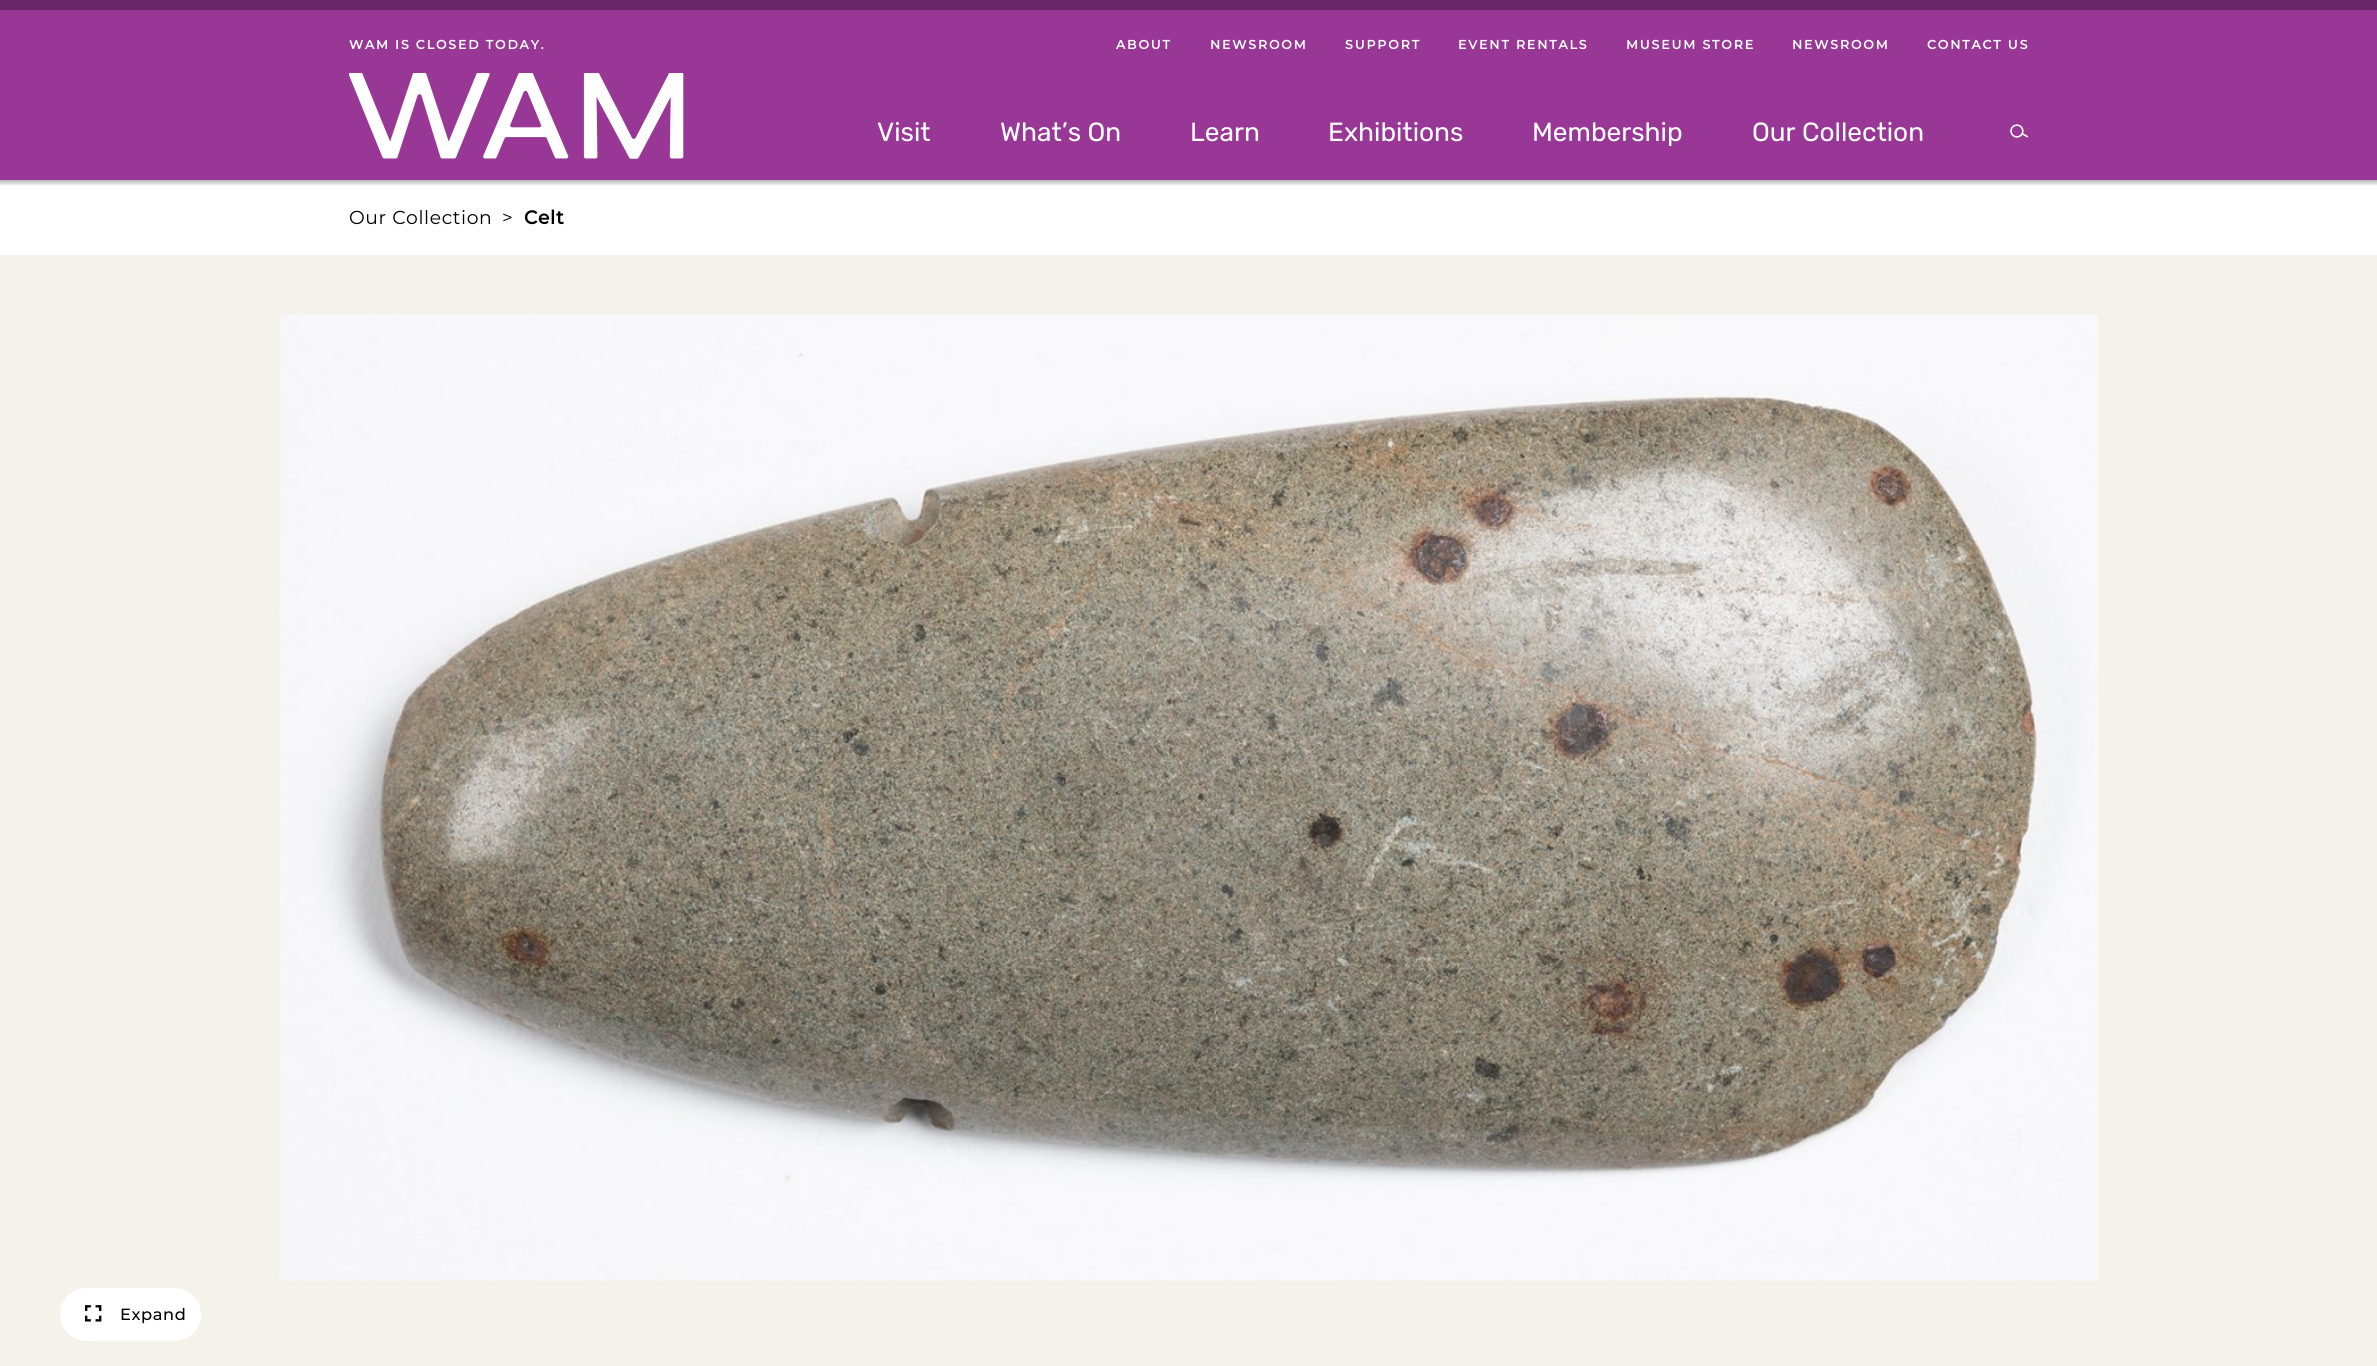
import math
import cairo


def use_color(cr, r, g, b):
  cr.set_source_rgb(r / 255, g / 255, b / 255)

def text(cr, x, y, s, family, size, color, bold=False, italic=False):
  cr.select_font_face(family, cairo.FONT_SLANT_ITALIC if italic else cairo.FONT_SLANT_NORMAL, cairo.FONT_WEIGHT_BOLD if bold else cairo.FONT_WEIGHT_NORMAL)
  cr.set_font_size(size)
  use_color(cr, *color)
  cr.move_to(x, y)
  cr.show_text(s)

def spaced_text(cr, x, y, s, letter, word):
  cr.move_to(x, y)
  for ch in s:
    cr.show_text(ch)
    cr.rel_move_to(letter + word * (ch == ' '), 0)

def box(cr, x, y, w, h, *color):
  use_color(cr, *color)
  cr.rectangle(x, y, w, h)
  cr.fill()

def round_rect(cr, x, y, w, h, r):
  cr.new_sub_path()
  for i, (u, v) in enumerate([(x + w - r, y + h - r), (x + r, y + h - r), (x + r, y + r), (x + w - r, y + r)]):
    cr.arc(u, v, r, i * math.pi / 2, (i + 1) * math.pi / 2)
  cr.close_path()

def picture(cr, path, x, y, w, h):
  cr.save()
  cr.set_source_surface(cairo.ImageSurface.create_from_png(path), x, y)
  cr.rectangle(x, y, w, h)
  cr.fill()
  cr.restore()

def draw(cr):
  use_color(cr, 255, 255, 255)
  cr.paint()
  box(cr, 0, 10, 2377, 170, 152, 55, 149)
  box(cr, 0, 0, 2377, 10, 106, 39, 104)
  picture(cr, "img_01.png", 349, 73, 335, 86)
  picture(cr, "img_02.png", 2010, 124, 19, 14)
  gradient = cairo.LinearGradient(1189, 180, 1189, 186)
  gradient.add_color_stop_rgba(0, 0.702, 0.702, 0.702, 1)
  gradient.add_color_stop_rgba(1, 1, 1, 1, 1)
  cr.set_source(gradient)
  cr.rectangle(0, 180, 2377, 6)
  cr.fill()
  box(cr, 0, 255, 2377, 1111, 244, 242, 235)
  picture(cr, "img_03.png", 279, 314, 1819, 967)
  use_color(cr, 255, 255, 255)
  round_rect(cr, 60, 1288, 141, 53, 26.5)
  cr.fill()
  picture(cr, "img_04.png", 85, 1305, 17, 17)
  cr.select_font_face("Montserrat", cairo.FONT_SLANT_NORMAL, cairo.FONT_WEIGHT_BOLD)
  cr.set_font_size(12.5)
  spaced_text(cr, 349, 49, "WAM IS CLOSED TODAY.", 1.9, 0)
  spaced_text(cr, 1116, 49, "ABOUT", 1.9, 0)
  spaced_text(cr, 1210, 49, "NEWSROOM", 1.9, 0)
  spaced_text(cr, 1345, 49, "SUPPORT", 1.9, 0)
  spaced_text(cr, 1458, 49, "EVENT RENTALS", 1.9, 0)
  spaced_text(cr, 1626, 49, "MUSEUM STORE", 1.9, 0)
  spaced_text(cr, 1792, 49, "NEWSROOM", 1.9, 0)
  spaced_text(cr, 1927, 49, "CONTACT US", 1.9, 0)
  text(cr, 877, 141, "Visit", "Rubik", 26.25, (255, 255, 255))
  text(cr, 1000, 141, "What’s On", "Rubik", 26.25, (255, 255, 255))
  text(cr, 1190, 141, "Learn", "Rubik", 26.25, (255, 255, 255))
  text(cr, 1328, 141, "Exhibitions", "Rubik", 26.25, (255, 255, 255))
  text(cr, 1532, 141, "Membership", "Rubik", 26.25, (255, 255, 255))
  text(cr, 1752, 141, "Our Collection", "Rubik", 26.25, (255, 255, 255))
  cr.select_font_face("Montserrat")
  cr.set_font_size(18.75)
  use_color(cr, 0, 0, 0)
  spaced_text(cr, 349, 224, "Our Collection", 0.6, 0)
  spaced_text(cr, 502, 224, ">", 0.6, 0)
  cr.select_font_face("Montserrat", cairo.FONT_SLANT_NORMAL, cairo.FONT_WEIGHT_BOLD)
  spaced_text(cr, 524, 224, "Celt", 0.6, 0)
  cr.select_font_face("Montserrat Medium")
  cr.set_font_size(16.25)
  spaced_text(cr, 120, 1320, "Expand", 0.6, 0)


surface = cairo.ImageSurface(cairo.FORMAT_RGB24, 2377, 1366)
cr = cairo.Context(surface)
options = cairo.FontOptions()
options.set_hint_metrics(cairo.HINT_METRICS_OFF)
options.set_hint_style(cairo.HINT_STYLE_NONE)
cr.set_font_options(options)
cr.set_miter_limit(4)
draw(cr)
surface.write_to_png("out.png")
